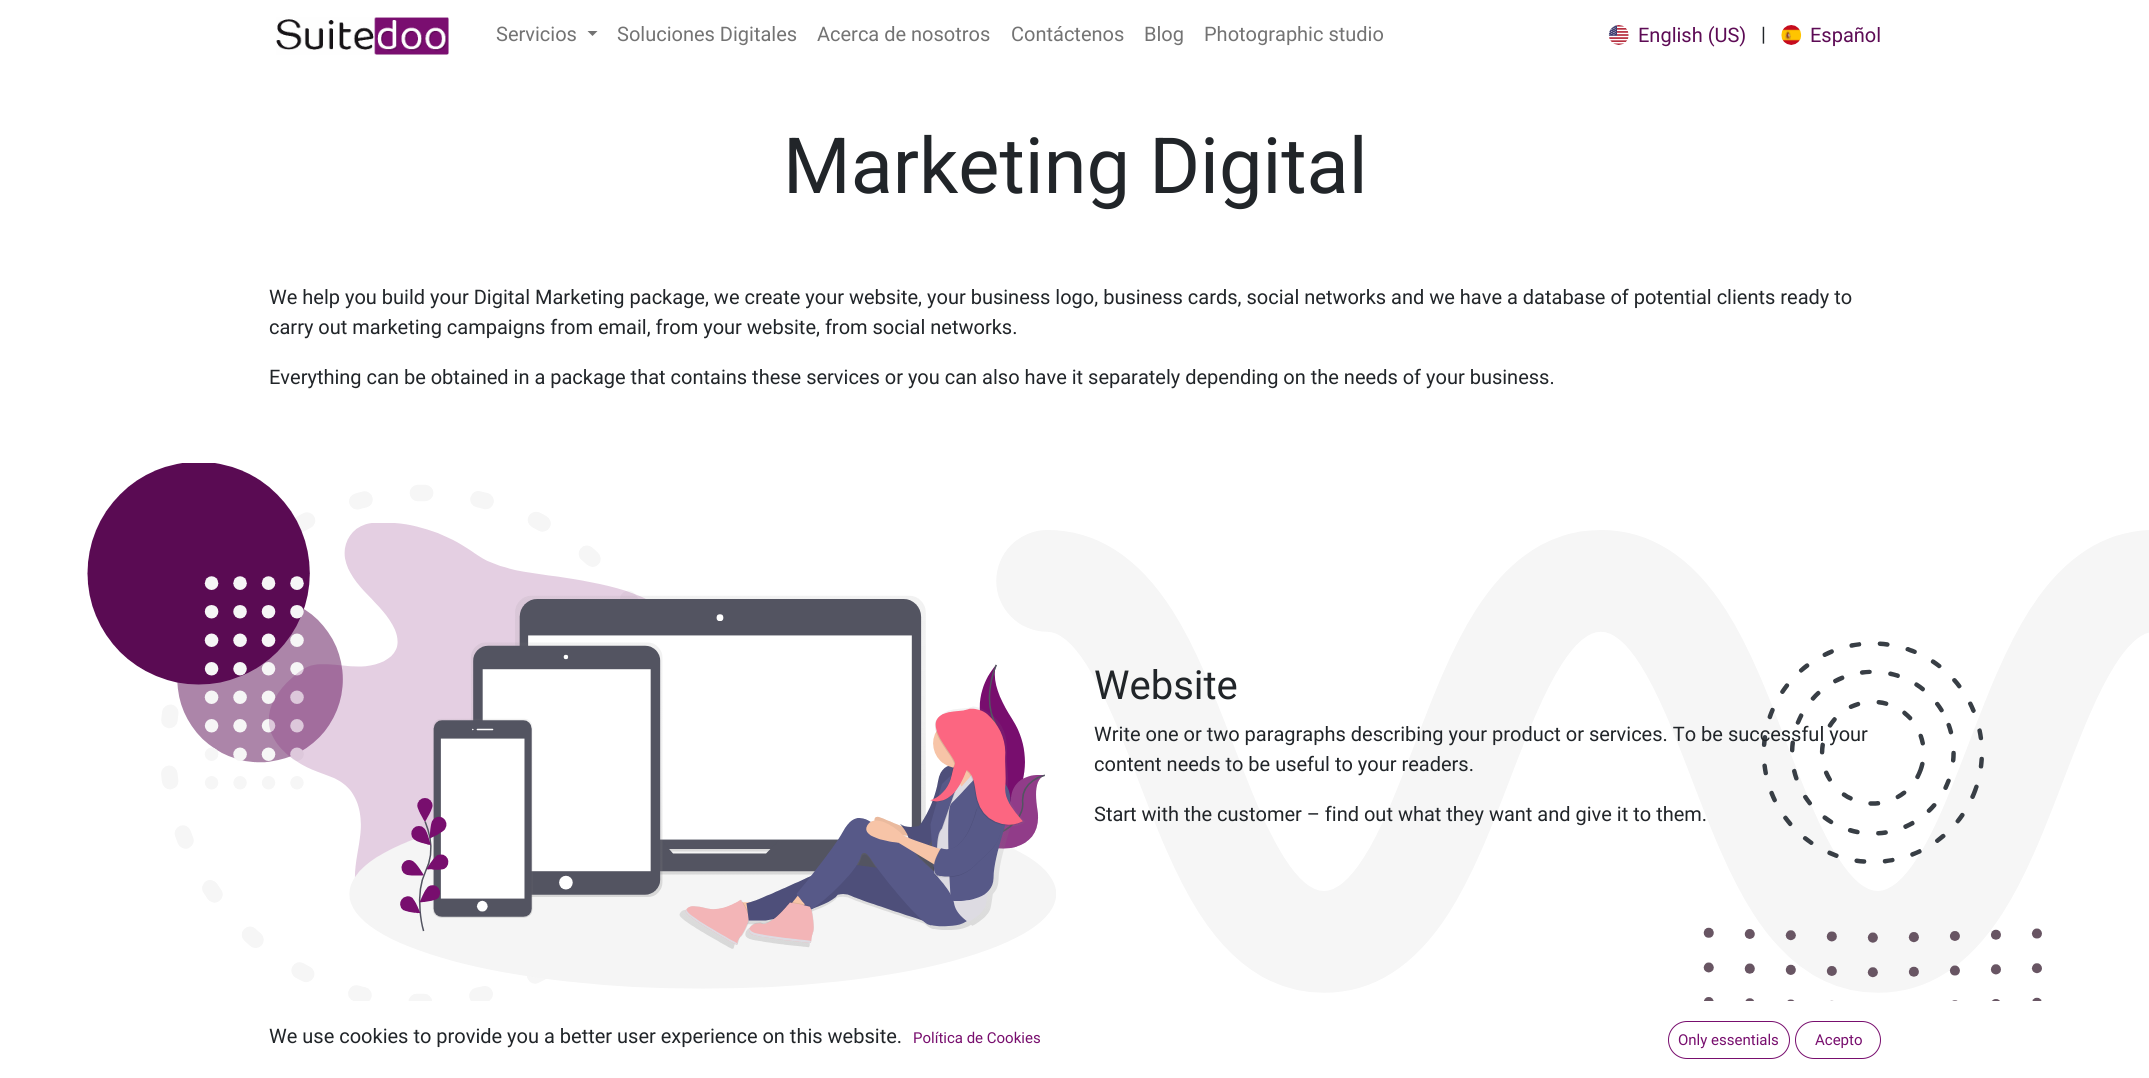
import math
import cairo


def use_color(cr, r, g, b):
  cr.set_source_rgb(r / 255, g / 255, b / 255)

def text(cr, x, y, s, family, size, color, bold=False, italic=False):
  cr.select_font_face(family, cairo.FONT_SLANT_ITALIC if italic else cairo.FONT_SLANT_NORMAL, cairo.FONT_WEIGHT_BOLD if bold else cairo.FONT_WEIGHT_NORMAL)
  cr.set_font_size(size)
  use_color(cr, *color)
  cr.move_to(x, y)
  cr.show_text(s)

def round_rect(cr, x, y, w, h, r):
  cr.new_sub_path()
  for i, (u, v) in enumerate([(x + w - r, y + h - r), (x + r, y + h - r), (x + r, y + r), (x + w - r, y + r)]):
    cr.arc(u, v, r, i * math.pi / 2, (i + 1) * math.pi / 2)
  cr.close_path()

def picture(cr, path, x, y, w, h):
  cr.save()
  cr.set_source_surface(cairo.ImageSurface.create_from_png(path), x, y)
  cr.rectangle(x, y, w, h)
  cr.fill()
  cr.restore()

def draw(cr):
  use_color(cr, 255, 255, 255)
  cr.paint()
  picture(cr, "img_01.png", 276, 17, 173, 38)
  use_color(cr, 115, 115, 115)
  cr.new_path()
  cr.move_to(587.5, 31)
  cr.line_to(597.5, 31)
  cr.line_to(592.5, 36)
  cr.close_path()
  cr.fill()
  picture(cr, "img_02.png", 1608, 25, 21, 20)
  picture(cr, "img_03.png", 1781, 25, 21, 20)
  picture(cr, "img_04.png", 87, 463, 2062, 538)
  picture(cr, "img_05.png", 269, 523, 787, 466)
  round_rect(cr, 1668.5, 1021.5, 121, 37, 18.5)
  use_color(cr, 120, 14, 110)
  cr.set_line_width(1)
  cr.stroke()
  round_rect(cr, 1795.5, 1021.5, 85, 37, 18.5)
  cr.stroke()
  text(cr, 496, 41, "Servicios", "Roboto", 20, (115, 115, 115))
  text(cr, 617, 41, "Soluciones Digitales", "Roboto", 20, (115, 115, 115))
  text(cr, 817, 41, "Acerca de nosotros", "Roboto", 20, (115, 115, 115))
  text(cr, 1011, 41, "Contáctenos", "Roboto", 20, (115, 115, 115))
  text(cr, 1144, 41, "Blog", "Roboto", 20, (115, 115, 115))
  text(cr, 1204, 41, "Photographic studio", "Roboto", 20, (115, 115, 115))
  text(cr, 1638, 42, "English (US)", "Roboto", 20, (93, 11, 85))
  text(cr, 1761, 41, "|", "Roboto", 20, (33, 37, 41))
  text(cr, 1810, 42, "Español", "Roboto", 20, (93, 11, 85))
  text(cr, 783, 193, "Marketing Digital", "Roboto", 77.5, (33, 37, 41))
  text(cr, 269, 304, "We help you build your Digital Marketing package, we create your website, your business logo, business cards, social networks and we have a database of potential clients ready to", "Roboto", 20, (33, 37, 41))
  text(cr, 269, 334, "carry out marketing campaigns from email, from your website, from social networks.", "Roboto", 20, (33, 37, 41))
  text(cr, 269, 384, "Everything can be obtained in a package that contains these services or you can also have it separately depending on the needs of your business.", "Roboto", 20, (33, 37, 41))
  text(cr, 1094, 699, "Website", "Roboto", 40, (33, 37, 41))
  text(cr, 1094, 741, "Write one or two paragraphs describing your product or services. To be successful your", "Roboto", 20, (33, 37, 41))
  text(cr, 1094, 771, "content needs to be useful to your readers.", "Roboto", 20, (33, 37, 41))
  text(cr, 1094, 821, "Start with the customer – find out what they want and give it to them.", "Roboto", 20, (33, 37, 41))
  text(cr, 269, 1043, "We use cookies to provide you a better user experience on this website.", "Roboto", 20, (33, 37, 41))
  text(cr, 913, 1043, "Política de Cookies", "Roboto", 15, (120, 14, 110))
  text(cr, 1678, 1045, "Only essentials", "Roboto", 15, (120, 14, 110))
  text(cr, 1815, 1045, "Acepto", "Roboto", 15, (120, 14, 110))


surface = cairo.ImageSurface(cairo.FORMAT_RGB24, 2149, 1078)
cr = cairo.Context(surface)
options = cairo.FontOptions()
options.set_hint_metrics(cairo.HINT_METRICS_OFF)
options.set_hint_style(cairo.HINT_STYLE_NONE)
cr.set_font_options(options)
cr.set_miter_limit(4)
draw(cr)
surface.write_to_png("out.png")
